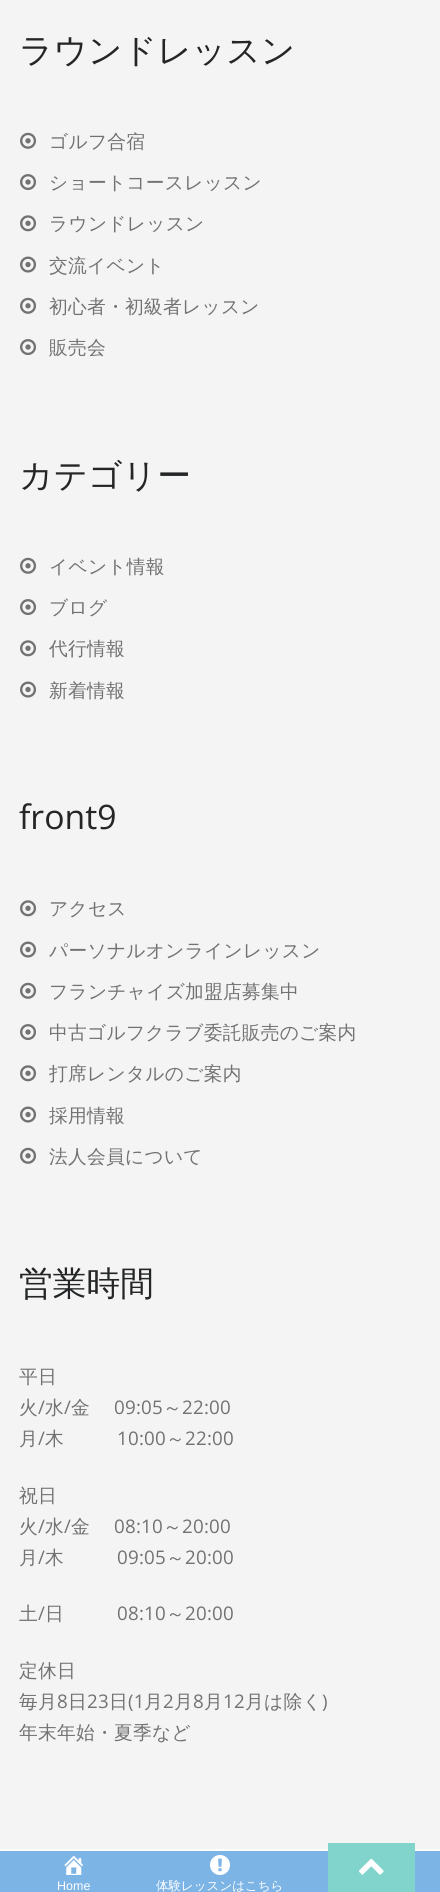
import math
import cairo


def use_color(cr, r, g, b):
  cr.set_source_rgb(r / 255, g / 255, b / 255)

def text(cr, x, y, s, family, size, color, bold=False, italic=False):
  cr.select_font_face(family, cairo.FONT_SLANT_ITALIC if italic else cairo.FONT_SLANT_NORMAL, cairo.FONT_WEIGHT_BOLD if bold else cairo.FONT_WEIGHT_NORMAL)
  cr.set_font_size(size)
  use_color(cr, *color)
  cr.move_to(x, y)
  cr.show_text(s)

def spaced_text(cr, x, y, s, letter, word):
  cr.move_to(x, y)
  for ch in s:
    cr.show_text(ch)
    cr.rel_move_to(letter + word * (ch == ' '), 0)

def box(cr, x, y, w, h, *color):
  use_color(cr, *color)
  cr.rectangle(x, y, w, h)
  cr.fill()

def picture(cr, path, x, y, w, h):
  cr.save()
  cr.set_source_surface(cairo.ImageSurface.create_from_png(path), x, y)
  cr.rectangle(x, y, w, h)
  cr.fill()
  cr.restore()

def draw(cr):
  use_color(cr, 255, 255, 255)
  cr.paint()
  box(cr, 0, 0, 440, 1849, 244, 244, 244)
  picture(cr, "img_01.png", 20, 132, 17, 17)
  picture(cr, "img_02.png", 20, 174, 16, 17)
  picture(cr, "img_03.png", 20, 215, 17, 17)
  picture(cr, "img_04.png", 20, 256, 17, 17)
  picture(cr, "img_01.png", 20, 297, 17, 17)
  picture(cr, "img_02.png", 20, 339, 16, 17)
  picture(cr, "img_01.png", 20, 557, 17, 17)
  picture(cr, "img_02.png", 20, 599, 16, 17)
  picture(cr, "img_03.png", 20, 640, 17, 17)
  picture(cr, "img_04.png", 20, 681, 17, 17)
  picture(cr, "img_03.png", 20, 900, 17, 17)
  picture(cr, "img_04.png", 20, 941, 17, 17)
  picture(cr, "img_01.png", 20, 982, 17, 17)
  picture(cr, "img_02.png", 20, 1024, 16, 17)
  picture(cr, "img_03.png", 20, 1065, 17, 17)
  picture(cr, "img_04.png", 20, 1106, 17, 17)
  picture(cr, "img_01.png", 20, 1147, 17, 17)
  box(cr, 0, 1851, 440, 41, 125, 180, 230)
  picture(cr, "img_05.png", 64, 1855, 19, 20)
  picture(cr, "img_06.png", 210, 1855, 20, 20)
  box(cr, 328, 1843, 87, 49, 129, 212, 203)
  picture(cr, "img_07.png", 358, 1858, 26, 17)
  text(cr, 19, 62, "ラウンドレッスン", "WenQuanYi Zen Hei Medium", 33.75, (36, 37, 38))
  cr.set_font_size(18.75)
  use_color(cr, 114, 114, 114)
  spaced_text(cr, 49, 148, "ゴルフ合宿", 0.25, 0)
  spaced_text(cr, 49, 189, "ショートコースレッスン", 0.25, 0)
  spaced_text(cr, 49, 230, "ラウンドレッスン", 0.25, 0)
  spaced_text(cr, 49, 272, "交流イベント", 0.25, 0)
  spaced_text(cr, 49, 313, "初心者・初級者レッスン", 0.25, 0)
  spaced_text(cr, 49, 354, "販売会", 0.25, 0)
  text(cr, 19, 487, "カテゴリー", "WenQuanYi Zen Hei Medium", 33.75, (36, 37, 38))
  cr.set_font_size(18.75)
  use_color(cr, 114, 114, 114)
  spaced_text(cr, 49, 573, "イベント情報", 0.25, 0)
  spaced_text(cr, 49, 614, "ブログ", 0.25, 0)
  spaced_text(cr, 49, 655, "代行情報", 0.25, 0)
  spaced_text(cr, 49, 697, "新着情報", 0.25, 0)
  text(cr, 19, 829, "front9", "Open Sans", 33.75, (36, 37, 38))
  cr.select_font_face("WenQuanYi Zen Hei Medium")
  cr.set_font_size(18.75)
  use_color(cr, 114, 114, 114)
  spaced_text(cr, 49, 915, "アクセス", 0.25, 0)
  spaced_text(cr, 49, 957, "パーソナルオンラインレッスン", 0.25, 0)
  spaced_text(cr, 49, 998, "フランチャイズ加盟店募集中", 0.25, 0)
  spaced_text(cr, 49, 1039, "中古ゴルフクラブ委託販売のご案内", 0.25, 0)
  spaced_text(cr, 49, 1080, "打席レンタルのご案内", 0.25, 0)
  spaced_text(cr, 49, 1122, "採用情報", 0.25, 0)
  spaced_text(cr, 49, 1163, "法人会員について", 0.25, 0)
  text(cr, 19, 1295, "営業時間", "WenQuanYi Zen Hei Medium", 33.75, (36, 37, 38))
  cr.set_font_size(18.75)
  use_color(cr, 114, 114, 114)
  spaced_text(cr, 19, 1383, "平日", 0.25, 0)
  spaced_text(cr, 19, 1414, "火", 0.25, 0)
  cr.select_font_face("Open Sans")
  spaced_text(cr, 38, 1414, "/", 0.25, 0)
  cr.select_font_face("WenQuanYi Zen Hei Medium")
  spaced_text(cr, 45, 1414, "水", 0.25, 0)
  cr.select_font_face("Open Sans")
  spaced_text(cr, 64, 1414, "/", 0.25, 0)
  cr.select_font_face("WenQuanYi Zen Hei Medium")
  spaced_text(cr, 71, 1414, "金", 0.25, 0)
  cr.select_font_face("Open Sans")
  spaced_text(cr, 114, 1414, "09:05", 0.25, 0)
  cr.select_font_face("WenQuanYi Zen Hei Medium")
  spaced_text(cr, 163, 1414, "～", 0.25, 0)
  cr.select_font_face("Open Sans")
  spaced_text(cr, 182, 1414, "22:00", 0.25, 0)
  cr.select_font_face("WenQuanYi Zen Hei Medium")
  spaced_text(cr, 19, 1445, "月", 0.25, 0)
  cr.select_font_face("Open Sans")
  spaced_text(cr, 38, 1445, "/", 0.25, 0)
  cr.select_font_face("WenQuanYi Zen Hei Medium")
  spaced_text(cr, 45, 1445, "木", 0.25, 0)
  cr.select_font_face("Open Sans")
  spaced_text(cr, 117, 1445, "10:00", 0.25, 0)
  cr.select_font_face("WenQuanYi Zen Hei Medium")
  spaced_text(cr, 166, 1445, "～", 0.25, 0)
  cr.select_font_face("Open Sans")
  spaced_text(cr, 185, 1445, "22:00", 0.25, 0)
  cr.select_font_face("WenQuanYi Zen Hei Medium")
  spaced_text(cr, 19, 1502, "祝日", 0.25, 0)
  spaced_text(cr, 19, 1533, "火", 0.25, 0)
  cr.select_font_face("Open Sans")
  spaced_text(cr, 38, 1533, "/", 0.25, 0)
  cr.select_font_face("WenQuanYi Zen Hei Medium")
  spaced_text(cr, 45, 1533, "水", 0.25, 0)
  cr.select_font_face("Open Sans")
  spaced_text(cr, 64, 1533, "/", 0.25, 0)
  cr.select_font_face("WenQuanYi Zen Hei Medium")
  spaced_text(cr, 71, 1533, "金", 0.25, 0)
  cr.select_font_face("Open Sans")
  spaced_text(cr, 114, 1533, "08:10", 0.25, 0)
  cr.select_font_face("WenQuanYi Zen Hei Medium")
  spaced_text(cr, 163, 1533, "～", 0.25, 0)
  cr.select_font_face("Open Sans")
  spaced_text(cr, 182, 1533, "20:00", 0.25, 0)
  cr.select_font_face("WenQuanYi Zen Hei Medium")
  spaced_text(cr, 19, 1564, "月", 0.25, 0)
  cr.select_font_face("Open Sans")
  spaced_text(cr, 38, 1564, "/", 0.25, 0)
  cr.select_font_face("WenQuanYi Zen Hei Medium")
  spaced_text(cr, 45, 1564, "木", 0.25, 0)
  cr.select_font_face("Open Sans")
  spaced_text(cr, 117, 1564, "09:05", 0.25, 0)
  cr.select_font_face("WenQuanYi Zen Hei Medium")
  spaced_text(cr, 166, 1564, "～", 0.25, 0)
  cr.select_font_face("Open Sans")
  spaced_text(cr, 185, 1564, "20:00", 0.25, 0)
  cr.select_font_face("WenQuanYi Zen Hei Medium")
  spaced_text(cr, 19, 1620, "土", 0.25, 0)
  cr.select_font_face("Open Sans")
  spaced_text(cr, 38, 1620, "/", 0.25, 0)
  cr.select_font_face("WenQuanYi Zen Hei Medium")
  spaced_text(cr, 45, 1620, "日", 0.25, 0)
  cr.select_font_face("Open Sans")
  spaced_text(cr, 117, 1620, "08:10", 0.25, 0)
  cr.select_font_face("WenQuanYi Zen Hei Medium")
  spaced_text(cr, 166, 1620, "～", 0.25, 0)
  cr.select_font_face("Open Sans")
  spaced_text(cr, 185, 1620, "20:00", 0.25, 0)
  cr.select_font_face("WenQuanYi Zen Hei Medium")
  spaced_text(cr, 19, 1677, "定休日", 0.25, 0)
  spaced_text(cr, 19, 1708, "毎月", 0.25, 0)
  cr.select_font_face("Open Sans")
  spaced_text(cr, 57, 1708, "8", 0.25, 0)
  cr.select_font_face("WenQuanYi Zen Hei Medium")
  spaced_text(cr, 68, 1708, "日", 0.25, 0)
  cr.select_font_face("Open Sans")
  spaced_text(cr, 87, 1708, "23", 0.25, 0)
  cr.select_font_face("WenQuanYi Zen Hei Medium")
  spaced_text(cr, 109, 1708, "日", 0.25, 0)
  cr.select_font_face("Open Sans")
  spaced_text(cr, 128, 1708, "(1", 0.25, 0)
  cr.select_font_face("WenQuanYi Zen Hei Medium")
  spaced_text(cr, 144, 1708, "月", 0.25, 0)
  cr.select_font_face("Open Sans")
  spaced_text(cr, 163, 1708, "2", 0.25, 0)
  cr.select_font_face("WenQuanYi Zen Hei Medium")
  spaced_text(cr, 174, 1708, "月", 0.25, 0)
  cr.select_font_face("Open Sans")
  spaced_text(cr, 193, 1708, "8", 0.25, 0)
  cr.select_font_face("WenQuanYi Zen Hei Medium")
  spaced_text(cr, 204, 1708, "月", 0.25, 0)
  cr.select_font_face("Open Sans")
  spaced_text(cr, 223, 1708, "12", 0.25, 0)
  cr.select_font_face("WenQuanYi Zen Hei Medium")
  spaced_text(cr, 245, 1708, "月は除く", 0.25, 0)
  cr.select_font_face("Open Sans")
  spaced_text(cr, 322, 1708, ")", 0.25, 0)
  cr.select_font_face("WenQuanYi Zen Hei Medium")
  spaced_text(cr, 19, 1739, "年末年始・夏季など", 0.25, 0)
  text(cr, 57, 1890, "Home", "Liberation Sans", 12.5, (255, 255, 255))
  text(cr, 156, 1890, "体験レッスンはこちら", "WenQuanYi Zen Hei Medium", 12.5, (255, 255, 255))


surface = cairo.ImageSurface(cairo.FORMAT_RGB24, 440, 1892)
cr = cairo.Context(surface)
options = cairo.FontOptions()
options.set_hint_metrics(cairo.HINT_METRICS_OFF)
options.set_hint_style(cairo.HINT_STYLE_NONE)
cr.set_font_options(options)
cr.set_miter_limit(4)
draw(cr)
surface.write_to_png("out.png")
